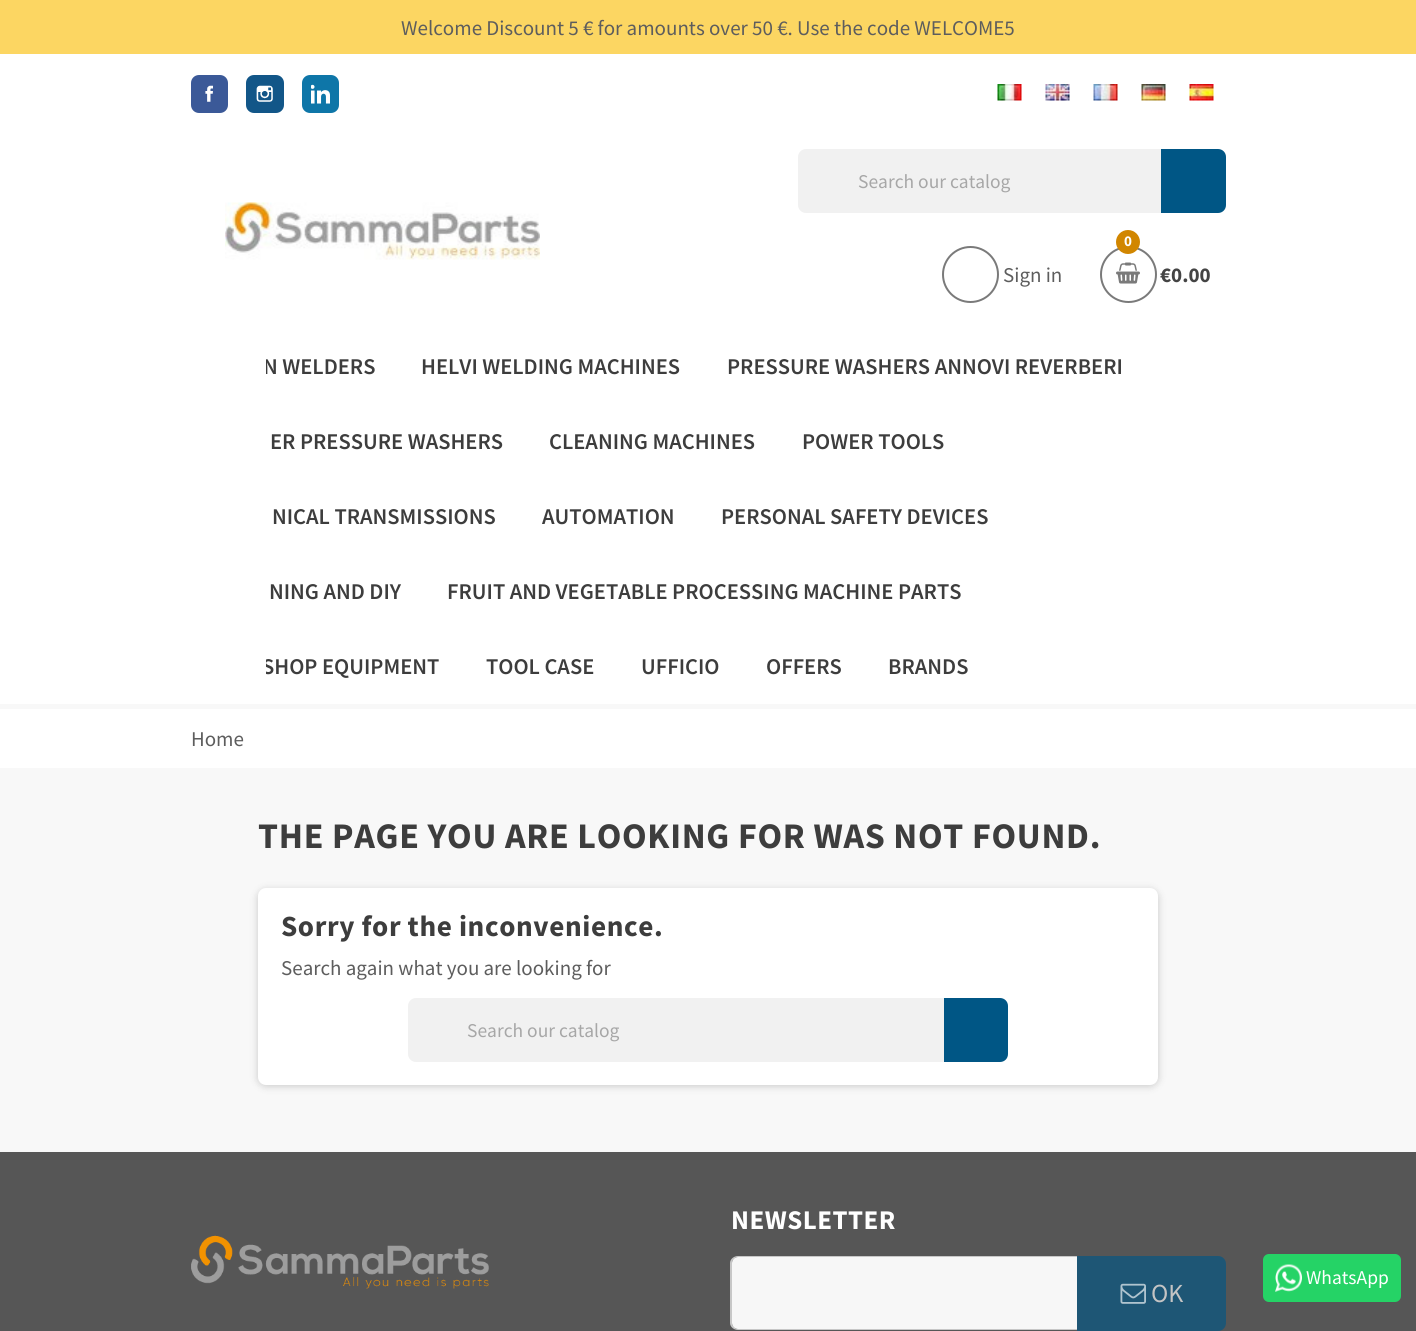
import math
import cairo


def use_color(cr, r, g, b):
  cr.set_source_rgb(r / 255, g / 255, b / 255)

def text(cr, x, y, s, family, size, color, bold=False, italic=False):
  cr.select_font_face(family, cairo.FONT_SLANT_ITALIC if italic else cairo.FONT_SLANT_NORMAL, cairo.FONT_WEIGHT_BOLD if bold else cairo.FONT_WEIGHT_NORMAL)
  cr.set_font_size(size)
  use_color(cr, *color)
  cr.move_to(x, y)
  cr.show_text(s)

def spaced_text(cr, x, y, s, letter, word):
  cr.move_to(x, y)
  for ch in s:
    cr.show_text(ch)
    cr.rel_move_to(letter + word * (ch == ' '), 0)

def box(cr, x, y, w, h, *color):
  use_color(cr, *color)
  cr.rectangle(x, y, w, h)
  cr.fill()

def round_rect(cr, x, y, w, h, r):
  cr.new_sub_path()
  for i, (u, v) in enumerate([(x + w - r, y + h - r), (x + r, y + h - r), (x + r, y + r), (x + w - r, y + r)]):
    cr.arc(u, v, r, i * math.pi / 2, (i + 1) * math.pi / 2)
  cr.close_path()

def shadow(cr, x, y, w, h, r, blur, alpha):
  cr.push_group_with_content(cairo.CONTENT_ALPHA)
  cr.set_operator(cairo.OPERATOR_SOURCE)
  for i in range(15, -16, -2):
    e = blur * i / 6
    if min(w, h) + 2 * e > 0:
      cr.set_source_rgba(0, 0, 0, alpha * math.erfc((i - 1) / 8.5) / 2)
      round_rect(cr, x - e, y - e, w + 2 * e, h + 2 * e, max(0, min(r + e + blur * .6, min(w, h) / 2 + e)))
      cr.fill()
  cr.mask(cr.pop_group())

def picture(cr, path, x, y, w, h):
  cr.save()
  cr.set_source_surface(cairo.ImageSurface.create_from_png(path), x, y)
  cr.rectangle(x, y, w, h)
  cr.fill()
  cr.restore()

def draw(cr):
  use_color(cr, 255, 255, 255)
  cr.paint()
  box(cr, 0, 0, 1416, 54, 252, 214, 98)
  use_color(cr, 59, 89, 152)
  round_rect(cr, 191, 75, 37, 38, 8)
  cr.fill()
  picture(cr, "img_01.png", 205, 85, 8, 17)
  use_color(cr, 18, 86, 136)
  round_rect(cr, 246, 75, 38, 38, 8)
  cr.fill()
  picture(cr, "img_02.png", 256, 85, 17, 17)
  use_color(cr, 14, 118, 168)
  round_rect(cr, 302, 75, 37, 38, 8)
  cr.fill()
  picture(cr, "img_03.png", 311, 84, 19, 20)
  picture(cr, "img_04.png", 997, 84, 25, 17)
  picture(cr, "img_05.png", 1045, 84, 25, 17)
  picture(cr, "img_06.png", 1093, 84, 25, 17)
  picture(cr, "img_07.png", 1141, 84, 25, 17)
  picture(cr, "img_08.png", 1189, 84, 25, 17)
  picture(cr, "img_09.png", 225, 202, 315, 58)
  use_color(cr, 241, 241, 241)
  round_rect(cr, 798, 149, 426, 64, 8)
  cr.fill()
  use_color(cr, 0, 86, 133)
  cr.new_path()
  cr.move_to(1161, 149)
  cr.line_to(1218, 149)
  cr.curve_to(1222.5, 149, 1226, 152.5, 1226, 157)
  cr.line_to(1226, 205)
  cr.curve_to(1226, 209.5, 1222.5, 213, 1218, 213)
  cr.line_to(1161, 213)
  cr.close_path()
  cr.fill()
  cr.arc(970.5, 274.5, 27.5, 0, 2 * math.pi)
  use_color(cr, 122, 122, 122)
  cr.stroke()
  cr.arc(1128.5, 274.5, 27.5, 0, 2 * math.pi)
  cr.stroke()
  use_color(cr, 209, 134, 0)
  cr.arc(1128, 242, 12, 0, 2 * math.pi)
  cr.fill()
  picture(cr, "img_10.png", 1116, 262, 24, 22)
  box(cr, 0, 704, 1416, 5, 248, 248, 248)
  box(cr, 0, 768, 1416, 384, 248, 248, 248)
  use_color(cr, 0, 0, 0)
  shadow(cr, 258, 890, 900, 196, 8, 4, 0.2)
  use_color(cr, 255, 255, 255)
  round_rect(cr, 258, 888, 900, 197, 8)
  cr.fill()
  use_color(cr, 241, 241, 241)
  round_rect(cr, 408, 998, 599, 64, 8)
  cr.fill()
  use_color(cr, 0, 86, 133)
  cr.new_path()
  cr.move_to(944, 998)
  cr.line_to(1000, 998)
  cr.curve_to(1004.5, 998, 1008, 1001.5, 1008, 1006)
  cr.line_to(1008, 1054)
  cr.curve_to(1008, 1058.5, 1004.5, 1062, 1000, 1062)
  cr.line_to(944, 1062)
  cr.close_path()
  cr.fill()
  box(cr, 0, 1152, 1416, 179, 86, 86, 86)
  picture(cr, "img_11.png", 191, 1235, 298, 54)
  use_color(cr, 247, 247, 247)
  cr.new_path()
  cr.move_to(738, 1257)
  cr.line_to(1077, 1257)
  cr.line_to(1077, 1329)
  cr.line_to(738, 1329)
  cr.curve_to(734.5, 1329, 732, 1326.5, 732, 1323)
  cr.line_to(732, 1263)
  cr.curve_to(732, 1259.5, 734.5, 1257, 738, 1257)
  cr.close_path()
  cr.fill()
  use_color(cr, 199, 199, 199)
  cr.set_fill_rule(cairo.FILL_RULE_EVEN_ODD)
  cr.new_path()
  cr.move_to(738, 1256)
  cr.line_to(1077, 1256)
  cr.line_to(1077, 1330)
  cr.line_to(738, 1330)
  cr.curve_to(734, 1330, 730, 1327, 730, 1323)
  cr.line_to(730, 1263)
  cr.curve_to(730, 1259, 734, 1256, 738, 1256)
  cr.close_path()
  cr.move_to(738, 1257)
  cr.line_to(1077, 1257)
  cr.line_to(1077, 1329)
  cr.line_to(738, 1329)
  cr.curve_to(735, 1329, 732, 1326, 732, 1323)
  cr.line_to(732, 1263)
  cr.curve_to(732, 1260, 735, 1257, 738, 1257)
  cr.close_path()
  cr.fill()
  use_color(cr, 30, 86, 117)
  cr.new_path()
  cr.move_to(1077, 1256)
  cr.line_to(1218, 1256)
  cr.curve_to(1222.5, 1256, 1226, 1259.5, 1226, 1264)
  cr.line_to(1226, 1323)
  cr.curve_to(1226, 1327.5, 1222.5, 1331, 1218, 1331)
  cr.line_to(1077, 1331)
  cr.close_path()
  cr.fill()
  picture(cr, "img_12.png", 1120, 1283, 26, 21)
  use_color(cr, 37, 211, 102)
  round_rect(cr, 1263, 1254, 138, 48, 6)
  cr.fill()
  picture(cr, "img_13.png", 1275, 1264, 27, 28)
  text(cr, 401, 35, "Welcome Discount 5 € for amounts over 50 €. Use the code WELCOME5", "Source Sans Pro", 21, (93, 93, 93))
  text(cr, 858, 188, "Search our catalog", "Source Sans Pro", 19.5, (167, 167, 167))
  text(cr, 1003, 282, "Sign in", "Source Sans Pro", 21, (93, 93, 93))
  text(cr, 1124, 246, "0", "Source Sans Pro", 15, (255, 255, 255), bold=True)
  text(cr, 1160, 282, "€0.00", "Source Sans Pro", 21, (68, 68, 68), bold=True)
  text(cr, 263, 374, "N WELDERS", "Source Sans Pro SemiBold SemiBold", 22.5, (61, 61, 61))
  text(cr, 421, 374, "HELVI WELDING MACHINES", "Source Sans Pro SemiBold SemiBold", 22.5, (61, 61, 61))
  text(cr, 727, 374, "PRESSURE WASHERS ANNOVI REVERBERI", "Source Sans Pro SemiBold SemiBold", 22.5, (61, 61, 61))
  text(cr, 270, 449, "ER PRESSURE WASHERS", "Source Sans Pro SemiBold SemiBold", 22.5, (61, 61, 61))
  text(cr, 549, 449, "CLEANING MACHINES", "Source Sans Pro SemiBold SemiBold", 22.5, (61, 61, 61))
  text(cr, 802, 449, "POWER TOOLS", "Source Sans Pro SemiBold SemiBold", 22.5, (61, 61, 61))
  text(cr, 272, 524, "NICAL TRANSMISSIONS", "Source Sans Pro SemiBold SemiBold", 22.5, (61, 61, 61))
  text(cr, 542, 524, "AUTOMATION", "Source Sans Pro SemiBold SemiBold", 22.5, (61, 61, 61))
  text(cr, 721, 524, "PERSONAL SAFETY DEVICES", "Source Sans Pro SemiBold SemiBold", 22.5, (61, 61, 61))
  text(cr, 269, 599, "NING AND DIY", "Source Sans Pro SemiBold SemiBold", 22.5, (61, 61, 61))
  text(cr, 447, 599, "FRUIT AND VEGETABLE PROCESSING MACHINE PARTS", "Source Sans Pro SemiBold SemiBold", 22.5, (61, 61, 61))
  text(cr, 262, 674, "SHOP EQUIPMENT", "Source Sans Pro SemiBold SemiBold", 22.5, (61, 61, 61))
  text(cr, 486, 674, "TOOL CASE", "Source Sans Pro SemiBold SemiBold", 22.5, (61, 61, 61))
  text(cr, 641, 674, "UFFICIO", "Source Sans Pro SemiBold SemiBold", 22.5, (61, 61, 61))
  text(cr, 766, 674, "OFFERS", "Source Sans Pro SemiBold SemiBold", 22.5, (61, 61, 61))
  text(cr, 888, 674, "BRANDS", "Source Sans Pro SemiBold SemiBold", 22.5, (61, 61, 61))
  box(cr, 263, 359, 3, 315, 255, 255, 255)
  text(cr, 191, 746, "Home", "Source Sans Pro", 21, (93, 93, 93))
  cr.select_font_face("Source Sans Pro", cairo.FONT_SLANT_NORMAL, cairo.FONT_WEIGHT_BOLD)
  cr.set_font_size(36)
  use_color(cr, 61, 61, 61)
  spaced_text(cr, 258, 848, "THE PAGE YOU ARE LOOKING FOR WAS NOT FOUND.", 0.7, 0)
  cr.set_font_size(29.25)
  spaced_text(cr, 281, 936, "Sorry for the inconvenience.", 0.6, 0)
  text(cr, 281, 975, "Search again what you are looking for", "Source Sans Pro", 21, (93, 93, 93))
  text(cr, 467, 1037, "Search our catalog", "Source Sans Pro", 19.5, (167, 167, 167))
  cr.select_font_face("Source Sans Pro", cairo.FONT_SLANT_NORMAL, cairo.FONT_WEIGHT_BOLD)
  cr.set_font_size(27)
  use_color(cr, 255, 255, 255)
  spaced_text(cr, 731, 1229, "NEWSLETTER", 0.5, 0)
  text(cr, 1151, 1302, "OK", "Source Sans Pro", 26, (196, 196, 196))
  text(cr, 1306, 1284, "WhatsApp", "Source Sans Pro", 19.5, (255, 255, 255))


surface = cairo.ImageSurface(cairo.FORMAT_RGB24, 1416, 1331)
cr = cairo.Context(surface)
options = cairo.FontOptions()
options.set_hint_metrics(cairo.HINT_METRICS_OFF)
options.set_hint_style(cairo.HINT_STYLE_NONE)
cr.set_font_options(options)
cr.set_miter_limit(4)
draw(cr)
surface.write_to_png("out.png")
